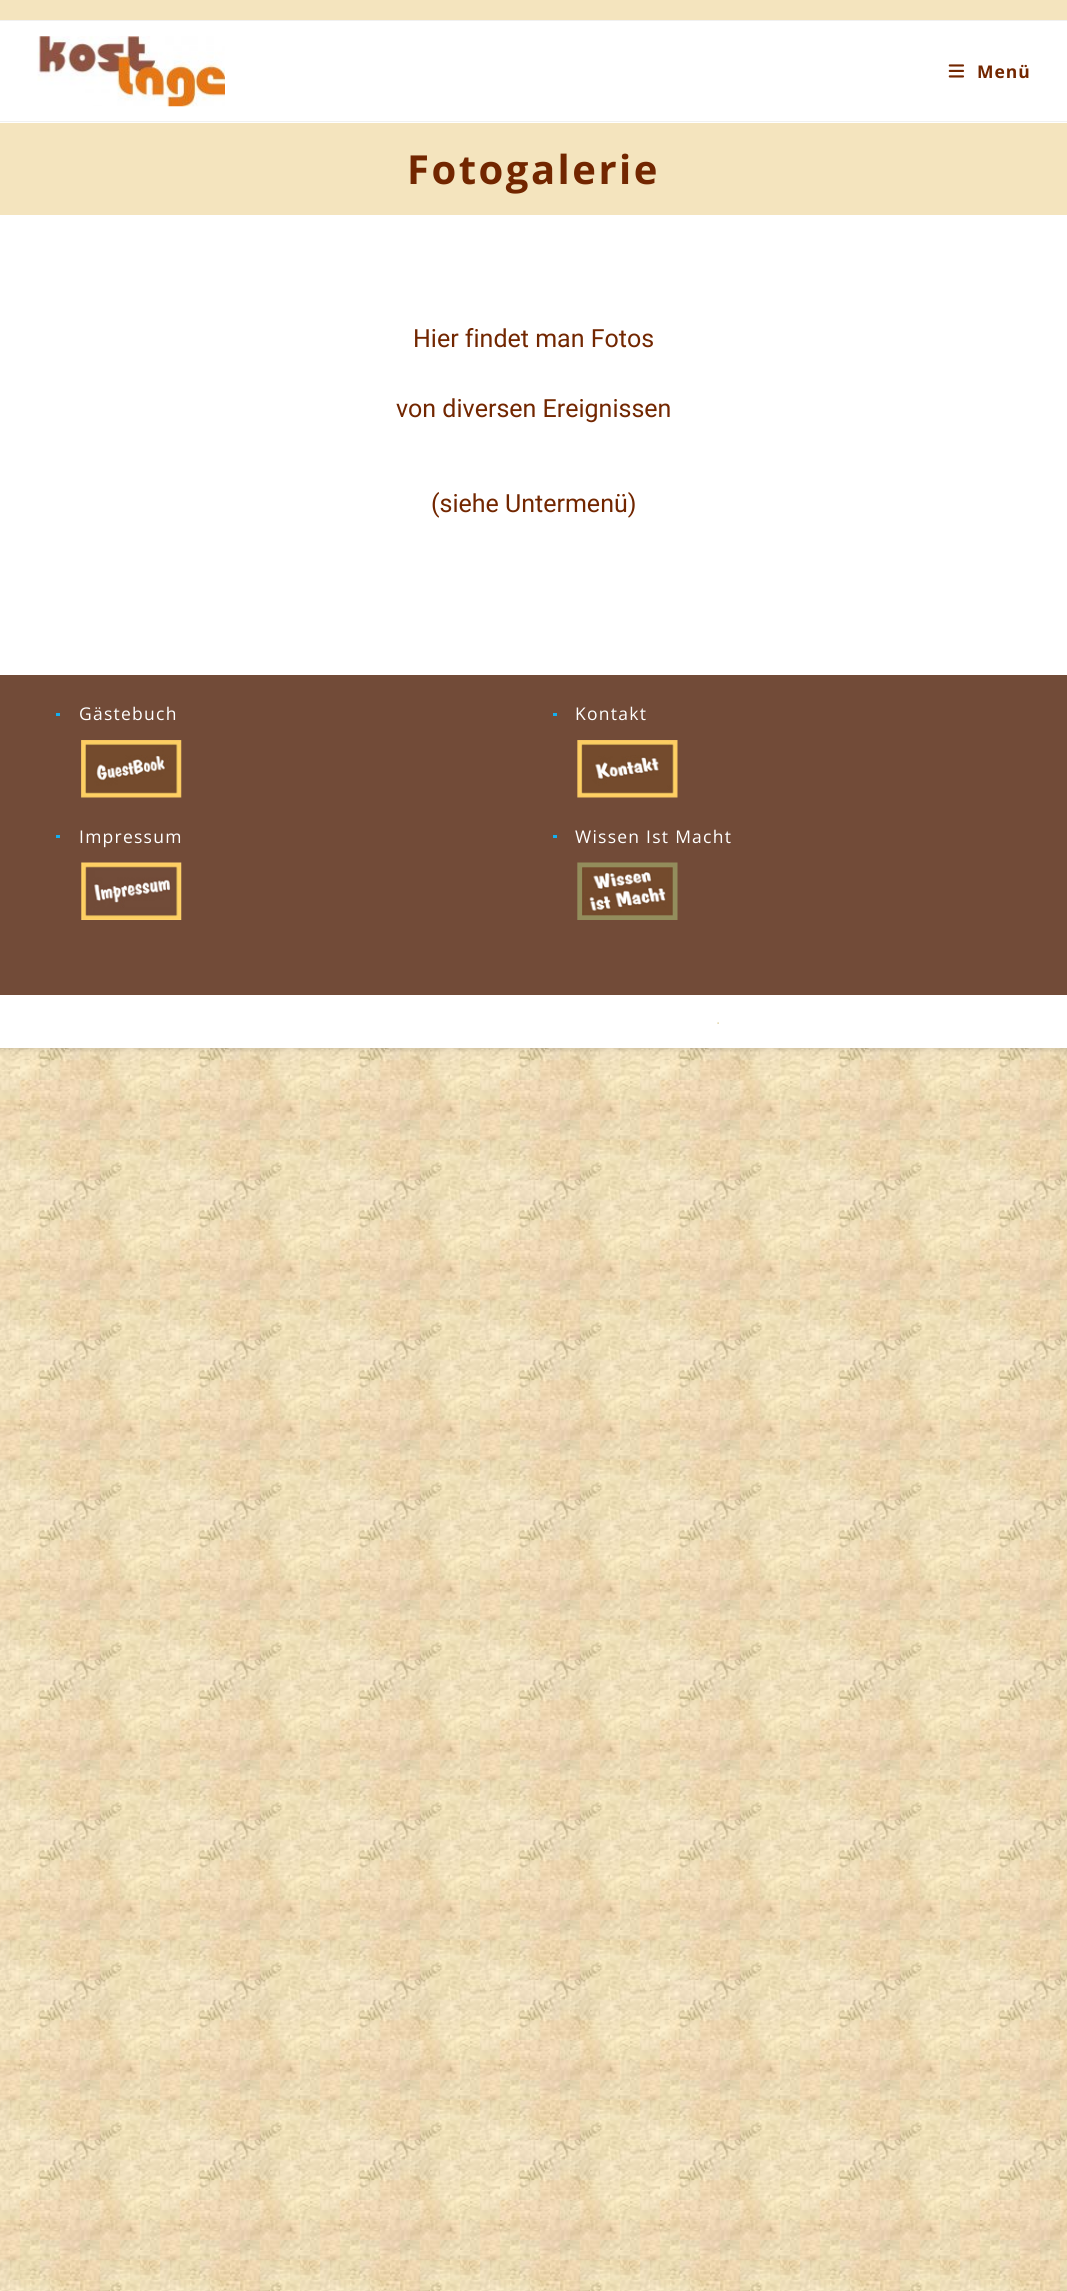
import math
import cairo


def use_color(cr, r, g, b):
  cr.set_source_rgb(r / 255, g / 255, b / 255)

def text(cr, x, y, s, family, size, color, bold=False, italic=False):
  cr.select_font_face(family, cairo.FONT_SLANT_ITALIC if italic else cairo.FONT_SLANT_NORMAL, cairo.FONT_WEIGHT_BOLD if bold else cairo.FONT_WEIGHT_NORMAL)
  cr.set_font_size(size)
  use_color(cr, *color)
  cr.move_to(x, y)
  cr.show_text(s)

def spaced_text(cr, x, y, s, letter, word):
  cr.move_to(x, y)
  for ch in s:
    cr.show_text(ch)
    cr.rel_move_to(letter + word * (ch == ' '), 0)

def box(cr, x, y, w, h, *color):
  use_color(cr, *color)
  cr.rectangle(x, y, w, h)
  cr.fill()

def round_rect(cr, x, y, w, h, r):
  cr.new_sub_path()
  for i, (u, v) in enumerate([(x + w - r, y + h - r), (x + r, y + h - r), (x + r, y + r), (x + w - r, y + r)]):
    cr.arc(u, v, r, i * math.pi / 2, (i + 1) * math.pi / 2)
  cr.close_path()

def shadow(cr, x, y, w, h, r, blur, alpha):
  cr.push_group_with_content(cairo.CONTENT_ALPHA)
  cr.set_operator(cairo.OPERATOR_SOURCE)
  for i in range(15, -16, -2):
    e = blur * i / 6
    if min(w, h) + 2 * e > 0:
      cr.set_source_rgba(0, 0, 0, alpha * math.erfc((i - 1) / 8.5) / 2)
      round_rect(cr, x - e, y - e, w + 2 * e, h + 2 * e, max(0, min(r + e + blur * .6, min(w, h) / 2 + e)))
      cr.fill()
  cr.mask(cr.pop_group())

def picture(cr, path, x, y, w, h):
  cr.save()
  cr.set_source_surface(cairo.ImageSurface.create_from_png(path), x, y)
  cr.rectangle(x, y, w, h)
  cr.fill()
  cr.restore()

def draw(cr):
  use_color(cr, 255, 255, 255)
  cr.paint()
  picture(cr, "img_01.png", 0, 1048, 1067, 1243)
  use_color(cr, 0, 0, 0)
  shadow(cr, 0, 1, 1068, 1048, 0, 2.5, 0.15)
  box(cr, 0, 21, 1067, 1027, 255, 255, 255)
  box(cr, 0, 0, 1067, 20, 244, 228, 190)
  box(cr, 0, 20, 1067, 1, 241, 241, 241)
  box(cr, 0, 121, 1067, 1, 241, 241, 241)
  picture(cr, "img_02.png", 37, 36, 188, 71)
  picture(cr, "img_03.png", 948, 64, 17, 14)
  box(cr, 0, 123, 1067, 92, 244, 228, 190)
  box(cr, 0, 675, 1067, 320, 114, 75, 56)
  box(cr, 56, 713, 4, 3, 19, 175, 240)
  picture(cr, "img_04.png", 81, 740, 101, 58)
  box(cr, 553, 713, 4, 3, 19, 175, 240)
  picture(cr, "img_05.png", 577, 740, 101, 58)
  box(cr, 56, 835, 4, 3, 19, 175, 240)
  picture(cr, "img_06.png", 81, 862, 101, 58)
  box(cr, 553, 835, 4, 3, 19, 175, 240)
  picture(cr, "img_07.png", 577, 862, 101, 58)
  picture(cr, "img_08.png", 717, 1022, 2, 2)
  cr.select_font_face("Open Sans", cairo.FONT_SLANT_NORMAL, cairo.FONT_WEIGHT_BOLD)
  cr.set_font_size(17.5)
  use_color(cr, 114, 38, 0)
  spaced_text(cr, 977, 78, "Menü", 1, 0)
  cr.set_font_size(40)
  spaced_text(cr, 407, 184, "Fotogalerie", 2.5, 0)
  text(cr, 413, 347, "Hier findet man Fotos", "Roboto", 25, (114, 38, 0))
  text(cr, 396, 417, "von diversen Ereignissen", "Roboto", 25, (114, 38, 0))
  text(cr, 431, 512, "(siehe Untermenü)", "Roboto", 25, (114, 38, 0))
  cr.select_font_face("Open Sans")
  cr.set_font_size(17.5)
  use_color(cr, 255, 255, 255)
  spaced_text(cr, 79, 720, "Gästebuch", 1.25, 0)
  spaced_text(cr, 575, 720, "Kontakt", 1.25, 0)
  spaced_text(cr, 79, 843, "Impressum", 1.25, 0)
  spaced_text(cr, 575, 843, "Wissen Ist Macht", 1.25, 0)


surface = cairo.ImageSurface(cairo.FORMAT_RGB24, 1067, 2291)
cr = cairo.Context(surface)
options = cairo.FontOptions()
options.set_hint_metrics(cairo.HINT_METRICS_OFF)
options.set_hint_style(cairo.HINT_STYLE_NONE)
cr.set_font_options(options)
cr.set_miter_limit(4)
draw(cr)
surface.write_to_png("out.png")
